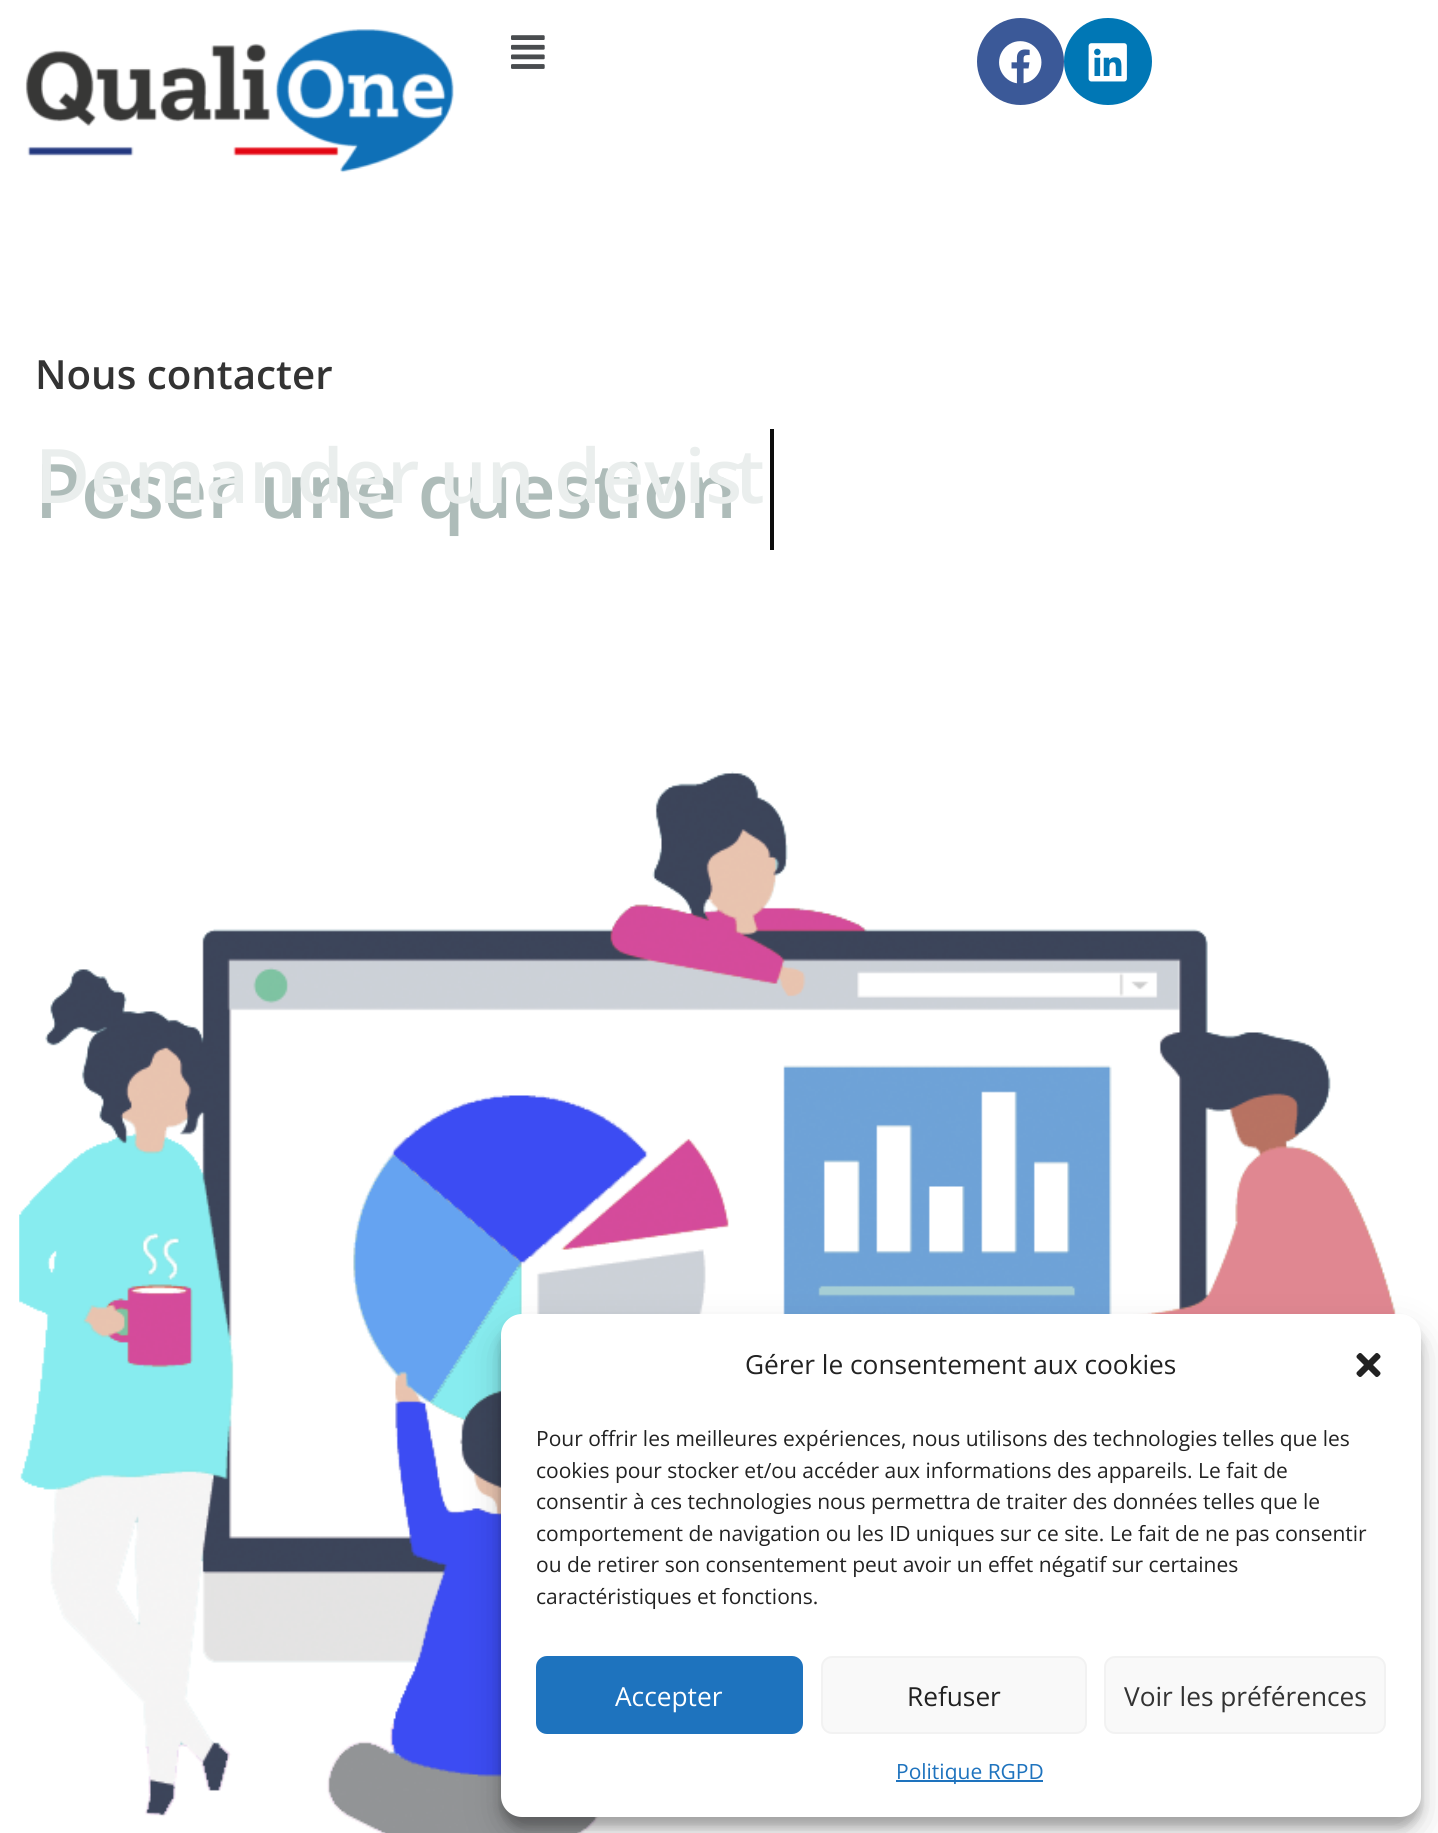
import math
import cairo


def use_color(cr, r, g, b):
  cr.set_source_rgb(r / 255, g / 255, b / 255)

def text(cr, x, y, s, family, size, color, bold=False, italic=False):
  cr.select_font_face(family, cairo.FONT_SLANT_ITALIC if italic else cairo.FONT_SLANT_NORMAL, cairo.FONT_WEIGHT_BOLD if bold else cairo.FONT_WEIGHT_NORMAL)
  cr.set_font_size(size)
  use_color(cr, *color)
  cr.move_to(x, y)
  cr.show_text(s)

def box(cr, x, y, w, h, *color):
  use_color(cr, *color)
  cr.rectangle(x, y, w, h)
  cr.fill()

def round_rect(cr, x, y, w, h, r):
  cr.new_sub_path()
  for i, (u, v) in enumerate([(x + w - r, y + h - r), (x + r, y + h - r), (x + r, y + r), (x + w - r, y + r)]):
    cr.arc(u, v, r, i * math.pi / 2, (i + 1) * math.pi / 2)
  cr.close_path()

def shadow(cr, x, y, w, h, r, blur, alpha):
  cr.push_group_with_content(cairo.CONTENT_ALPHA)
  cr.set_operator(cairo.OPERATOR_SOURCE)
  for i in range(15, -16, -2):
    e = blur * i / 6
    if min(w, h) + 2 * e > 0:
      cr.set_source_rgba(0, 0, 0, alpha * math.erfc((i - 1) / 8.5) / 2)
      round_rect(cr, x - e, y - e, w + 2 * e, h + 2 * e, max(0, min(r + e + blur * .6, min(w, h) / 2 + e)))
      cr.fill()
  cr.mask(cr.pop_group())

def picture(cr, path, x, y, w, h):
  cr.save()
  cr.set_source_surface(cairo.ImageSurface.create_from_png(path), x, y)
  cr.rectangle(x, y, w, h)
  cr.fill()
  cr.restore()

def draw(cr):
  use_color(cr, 255, 255, 255)
  cr.paint()
  picture(cr, "img_01.png", 25, 29, 429, 144)
  picture(cr, "img_02.png", 511, 35, 34, 34)
  use_color(cr, 59, 89, 152)
  cr.arc(1020.5, 61.5, 43.5, 0, 2 * math.pi)
  cr.fill()
  picture(cr, "img_03.png", 999, 41, 43, 43)
  use_color(cr, 0, 119, 181)
  round_rect(cr, 1064, 18, 88, 87, 43.5)
  cr.fill()
  picture(cr, "img_04.png", 1088, 43, 39, 39)
  box(cr, 770, 429, 4, 121, 13, 13, 13)
  picture(cr, "img_05.png", 19, 771, 1377, 1062)
  use_color(cr, 0, 0, 0)
  shadow(cr, 501, 1325, 920, 502, 21, 5, 0.23)
  shadow(cr, 501, 1332, 920, 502, 21, 17.5, 0.19)
  use_color(cr, 255, 255, 255)
  round_rect(cr, 501, 1314, 920, 503, 21)
  cr.fill()
  picture(cr, "img_06.png", 1356, 1353, 25, 24)
  use_color(cr, 30, 115, 190)
  round_rect(cr, 537, 1657, 265, 76, 10)
  cr.fill_preserve()
  cr.stroke()
  use_color(cr, 249, 249, 249)
  round_rect(cr, 822, 1657, 264, 76, 10)
  cr.fill_preserve()
  use_color(cr, 242, 242, 242)
  cr.stroke()
  use_color(cr, 249, 249, 249)
  round_rect(cr, 1105, 1657, 280, 76, 10)
  cr.fill_preserve()
  use_color(cr, 242, 242, 242)
  cr.stroke()
  box(cr, 896, 1780, 147, 2, 30, 115, 190)
  text(cr, 35, 389, "Nous contacter", "Open Sans SemiBold", 40.25, (51, 51, 51))
  text(cr, 35, 518, "Poser une question", "Open Sans SemiBold", 75.25, (174, 188, 185))
  text(cr, 35, 503, "Demander un devis", "Open Sans SemiBold", 75.25, (234, 238, 237))
  text(cr, 735, 503, "t", "Open Sans SemiBold", 75.25, (234, 238, 237))
  text(cr, 745, 1374, "Gérer le consentement aux cookies", "Open Sans", 26.25, (34, 34, 34))
  text(cr, 536, 1446, "Pour offrir les meilleures expériences, nous utilisons des technologies telles que les", "Open Sans", 21, (34, 34, 34))
  text(cr, 536, 1478, "cookies pour stocker et/ou accéder aux informations des appareils. Le fait de", "Open Sans", 21, (34, 34, 34))
  text(cr, 536, 1509, "consentir à ces technologies nous permettra de traiter des données telles que le", "Open Sans", 21, (34, 34, 34))
  text(cr, 536, 1541, "comportement de navigation ou les ID uniques sur ce site. Le fait de ne pas consentir", "Open Sans", 21, (34, 34, 34))
  text(cr, 536, 1572, "ou de retirer son consentement peut avoir un effet négatif sur certaines", "Open Sans", 21, (34, 34, 34))
  text(cr, 536, 1604, "caractéristiques et fonctions.", "Open Sans", 21, (34, 34, 34))
  text(cr, 615, 1706, "Accepter", "Open Sans", 26.25, (255, 255, 255))
  text(cr, 907, 1706, "Refuser", "Open Sans", 26.25, (34, 34, 34))
  text(cr, 1124, 1706, "Voir les préférences", "Open Sans", 26.25, (51, 51, 51))
  text(cr, 896, 1779, "Politique RGPD", "Open Sans", 21, (30, 115, 190))


surface = cairo.ImageSurface(cairo.FORMAT_RGB24, 1438, 1833)
cr = cairo.Context(surface)
options = cairo.FontOptions()
options.set_hint_metrics(cairo.HINT_METRICS_OFF)
options.set_hint_style(cairo.HINT_STYLE_NONE)
cr.set_font_options(options)
cr.set_miter_limit(4)
draw(cr)
surface.write_to_png("out.png")
